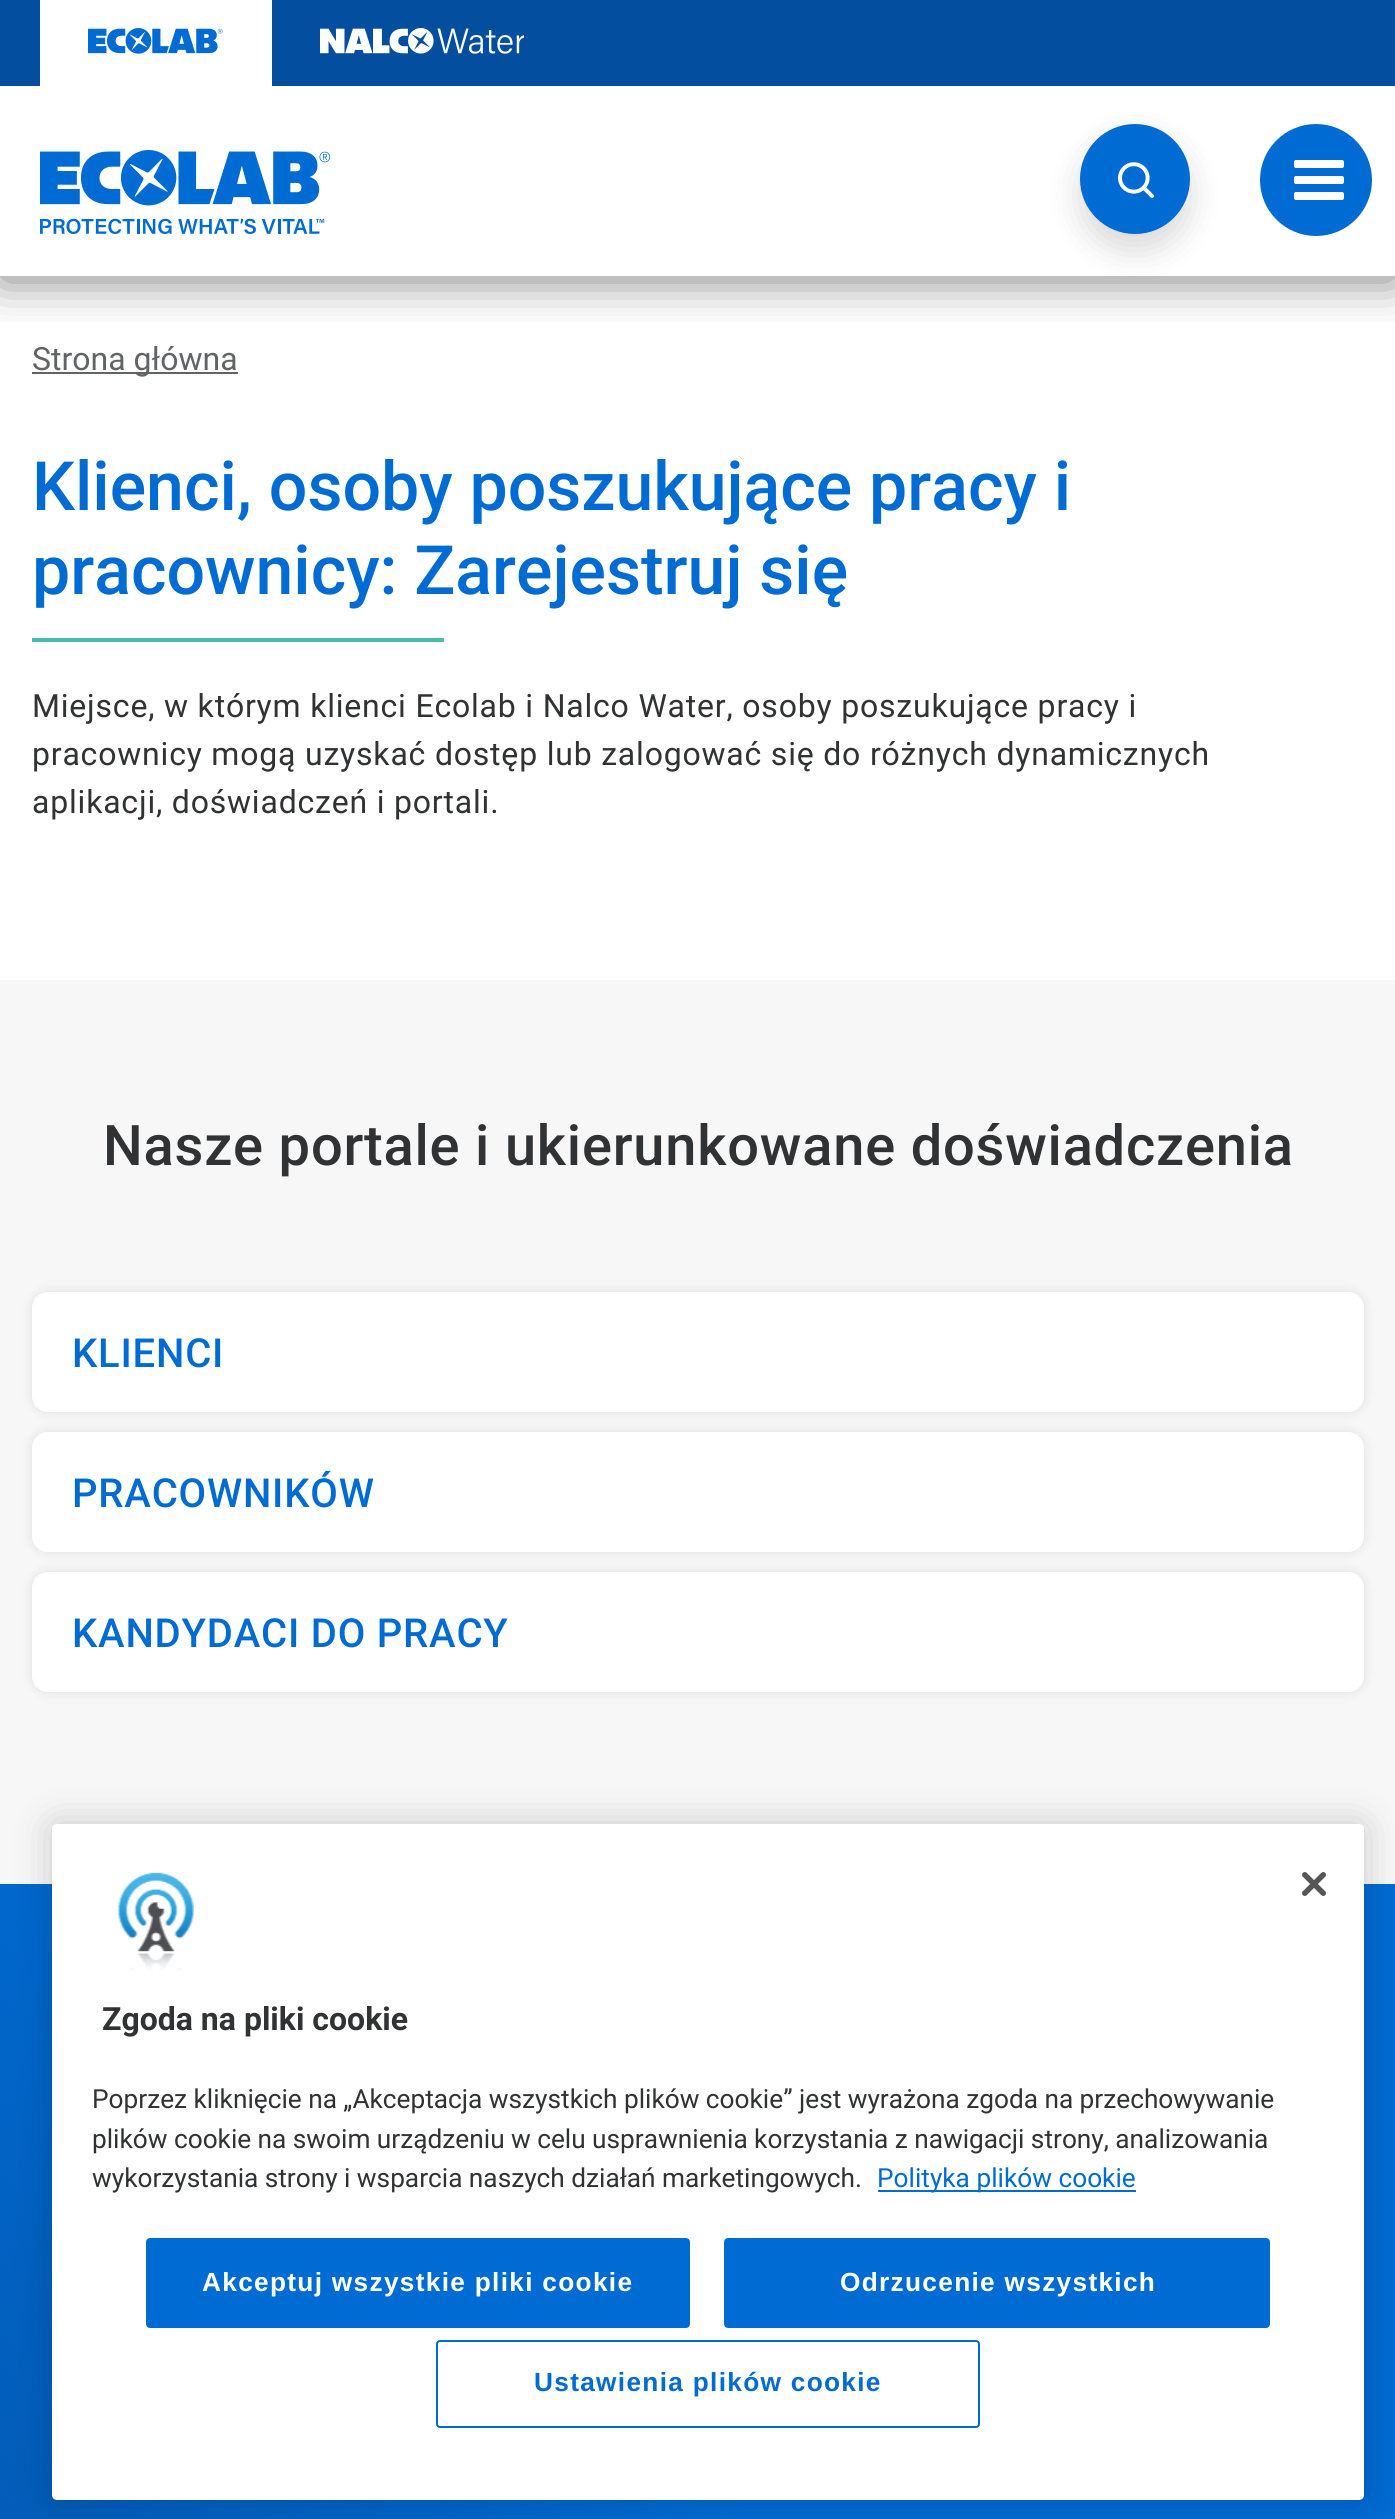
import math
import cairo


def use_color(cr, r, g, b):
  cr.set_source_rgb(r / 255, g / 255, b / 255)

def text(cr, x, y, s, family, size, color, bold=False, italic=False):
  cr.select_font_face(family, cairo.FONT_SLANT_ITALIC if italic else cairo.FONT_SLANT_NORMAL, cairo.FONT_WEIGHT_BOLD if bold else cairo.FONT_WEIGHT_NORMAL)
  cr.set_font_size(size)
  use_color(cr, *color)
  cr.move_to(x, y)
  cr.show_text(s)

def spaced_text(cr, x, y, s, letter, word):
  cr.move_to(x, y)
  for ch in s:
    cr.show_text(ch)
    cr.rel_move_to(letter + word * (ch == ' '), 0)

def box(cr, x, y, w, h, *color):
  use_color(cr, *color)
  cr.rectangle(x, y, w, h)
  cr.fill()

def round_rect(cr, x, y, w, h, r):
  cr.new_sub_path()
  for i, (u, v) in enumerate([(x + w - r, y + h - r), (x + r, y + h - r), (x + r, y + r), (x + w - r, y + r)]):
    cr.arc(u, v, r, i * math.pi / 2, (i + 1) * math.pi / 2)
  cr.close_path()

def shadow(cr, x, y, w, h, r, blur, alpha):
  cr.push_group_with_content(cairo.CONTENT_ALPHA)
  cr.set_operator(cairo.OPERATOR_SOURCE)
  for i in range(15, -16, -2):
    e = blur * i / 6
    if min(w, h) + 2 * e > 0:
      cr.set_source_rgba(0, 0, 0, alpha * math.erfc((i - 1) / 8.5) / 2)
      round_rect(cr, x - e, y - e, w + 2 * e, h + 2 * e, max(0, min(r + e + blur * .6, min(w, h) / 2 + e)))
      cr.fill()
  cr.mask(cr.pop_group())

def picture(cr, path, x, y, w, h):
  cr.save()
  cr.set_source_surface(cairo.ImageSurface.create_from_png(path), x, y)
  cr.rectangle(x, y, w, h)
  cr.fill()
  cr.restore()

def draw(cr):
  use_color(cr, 255, 255, 255)
  cr.paint()
  cr.save()
  cr.rectangle(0, 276, 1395, 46)
  cr.clip()
  use_color(cr, 0, 0, 0)
  shadow(cr, 0, 90, 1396, 190, 0, 24, 0.5)
  cr.restore()
  box(cr, 0, 0, 1395, 86, 4, 78, 160)
  box(cr, 40, 0, 232, 86, 255, 255, 255)
  picture(cr, "img_01.png", 88, 28, 135, 26)
  picture(cr, "img_02.png", 320, 28, 204, 26)
  use_color(cr, 0, 0, 0)
  shadow(cr, 1080, 140, 110, 110, 55, 16, 0.15)
  use_color(cr, 0, 107, 211)
  cr.arc(1135, 179, 55, 0, 2 * math.pi)
  cr.fill()
  picture(cr, "img_03.png", 1118, 162, 36, 36)
  picture(cr, "img_04.png", 40, 150, 291, 84)
  cr.arc(1316, 180, 56, 0, 2 * math.pi)
  cr.fill()
  use_color(cr, 255, 255, 255)
  round_rect(cr, 1294, 160, 50, 8, 2)
  cr.fill()
  round_rect(cr, 1294, 176, 50, 8, 2)
  cr.fill()
  round_rect(cr, 1294, 192, 50, 8, 2)
  cr.fill()
  box(cr, 32, 372, 206, 2, 97, 99, 101)
  box(cr, 32, 638, 412, 4, 71, 190, 171)
  box(cr, 0, 980, 1395, 904, 247, 247, 247)
  use_color(cr, 0, 0, 0)
  shadow(cr, 32, 1292, 1332, 120, 16, 6, 0.1)
  use_color(cr, 255, 255, 255)
  round_rect(cr, 32, 1292, 1332, 120, 16)
  cr.fill()
  use_color(cr, 0, 0, 0)
  shadow(cr, 32, 1432, 1332, 120, 16, 6, 0.1)
  use_color(cr, 255, 255, 255)
  round_rect(cr, 32, 1432, 1332, 120, 16)
  cr.fill()
  use_color(cr, 0, 0, 0)
  shadow(cr, 32, 1572, 1332, 120, 16, 6, 0.1)
  use_color(cr, 255, 255, 255)
  round_rect(cr, 32, 1572, 1332, 120, 16)
  cr.fill()
  picture(cr, "img_05.png", 0, 1884, 1395, 635)
  use_color(cr, 0, 0, 0)
  shadow(cr, 52, 1824, 1312, 676, 5, 18, 0.2)
  use_color(cr, 255, 255, 255)
  round_rect(cr, 52, 1824, 1312, 676, 5)
  cr.fill()
  picture(cr, "img_06.png", 1302, 1872, 24, 24)
  picture(cr, "img_07.png", 118, 1872, 76, 99)
  box(cr, 878, 2190, 258, 2, 0, 107, 211)
  round_rect(cr, 147, 2239, 542, 88, 3)
  cr.fill_preserve()
  cr.stroke()
  round_rect(cr, 725, 2239, 544, 88, 3)
  cr.fill_preserve()
  cr.stroke()
  round_rect(cr, 437, 2341, 542, 86, 3)
  cr.stroke()
  text(cr, 32, 370, "Strona główna", "Roboto", 32, (97, 99, 101))
  text(cr, 32, 510, "Klienci, osoby poszukujące pracy i", "Roboto Medium", 68, (0, 107, 211))
  text(cr, 32, 594, "pracownicy: Zarejestruj się", "Roboto Medium", 68, (0, 107, 211))
  cr.select_font_face("Roboto")
  cr.set_font_size(32)
  use_color(cr, 49, 50, 51)
  spaced_text(cr, 32, 717, "Miejsce, w którym klienci Ecolab i Nalco Water, osoby poszukujące pracy i", 0.8, 0)
  spaced_text(cr, 32, 765, "pracownicy mogą uzyskać dostęp lub zalogować się do różnych dynamicznych", 0.8, 0)
  spaced_text(cr, 32, 813, "aplikacji, doświadczeń i portali.", 0.8, 0)
  cr.select_font_face("Roboto Medium")
  cr.set_font_size(56)
  spaced_text(cr, 103, 1165, "Nasze portale i ukierunkowane doświadczenia", 0.8, 0)
  cr.set_font_size(40)
  use_color(cr, 0, 107, 211)
  spaced_text(cr, 72, 1367, "KLIENCI", 0.8, 0)
  spaced_text(cr, 72, 1507, "PRACOWNIKÓW", 0.8, 0)
  spaced_text(cr, 72, 1647, "KANDYDACI DO PRACY", 0.8, 0)
  text(cr, 102, 2030, "Zgoda na pliki cookie", "Roboto", 32, (49, 50, 51), bold=True)
  cr.select_font_face("Roboto")
  cr.set_font_size(26.25)
  spaced_text(cr, 92, 2108, "Poprzez kliknięcie na „Akceptacja wszystkich plików cookie” jest wyrażona zgoda na przechowywanie", 0, -0.1)
  spaced_text(cr, 92, 2148, "plików cookie na swoim urządzeniu w celu usprawnienia korzystania z nawigacji strony, analizowania", 0, -0.1)
  spaced_text(cr, 92, 2187, "wykorzystania strony i wsparcia naszych działań marketingowych.", 0, -0.1)
  text(cr, 877, 2187, "Polityka plików cookie", "Roboto", 26.25, (0, 107, 211))
  cr.select_font_face("Liberation Sans", cairo.FONT_SLANT_NORMAL, cairo.FONT_WEIGHT_BOLD)
  use_color(cr, 255, 255, 255)
  spaced_text(cr, 202, 2291, "Akceptuj wszystkie pliki cookie", 1.3, 0)
  spaced_text(cr, 840, 2291, "Odrzucenie wszystkich", 1.3, 0)
  use_color(cr, 0, 107, 211)
  spaced_text(cr, 534, 2391, "Ustawienia plików cookie", 1.3, 0)


surface = cairo.ImageSurface(cairo.FORMAT_RGB24, 1395, 2519)
cr = cairo.Context(surface)
options = cairo.FontOptions()
options.set_hint_metrics(cairo.HINT_METRICS_OFF)
options.set_hint_style(cairo.HINT_STYLE_NONE)
cr.set_font_options(options)
cr.set_miter_limit(4)
draw(cr)
surface.write_to_png("out.png")
